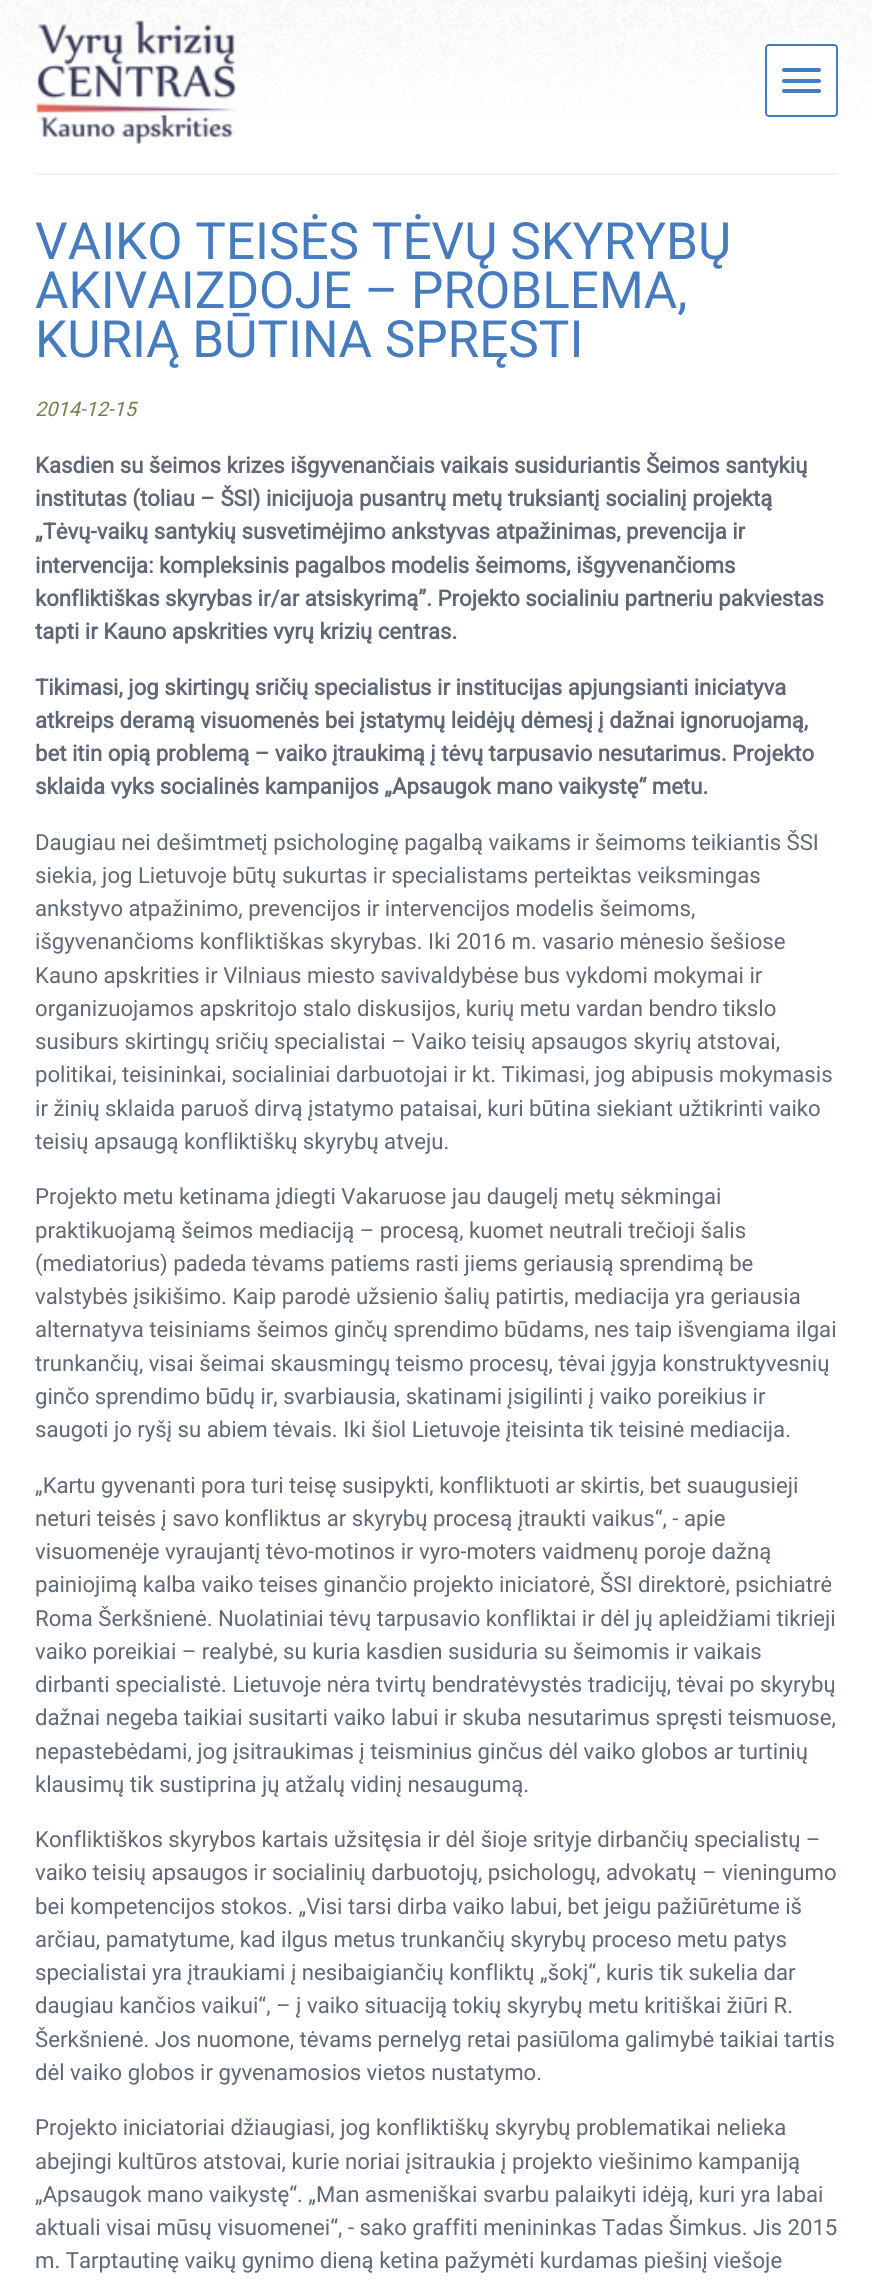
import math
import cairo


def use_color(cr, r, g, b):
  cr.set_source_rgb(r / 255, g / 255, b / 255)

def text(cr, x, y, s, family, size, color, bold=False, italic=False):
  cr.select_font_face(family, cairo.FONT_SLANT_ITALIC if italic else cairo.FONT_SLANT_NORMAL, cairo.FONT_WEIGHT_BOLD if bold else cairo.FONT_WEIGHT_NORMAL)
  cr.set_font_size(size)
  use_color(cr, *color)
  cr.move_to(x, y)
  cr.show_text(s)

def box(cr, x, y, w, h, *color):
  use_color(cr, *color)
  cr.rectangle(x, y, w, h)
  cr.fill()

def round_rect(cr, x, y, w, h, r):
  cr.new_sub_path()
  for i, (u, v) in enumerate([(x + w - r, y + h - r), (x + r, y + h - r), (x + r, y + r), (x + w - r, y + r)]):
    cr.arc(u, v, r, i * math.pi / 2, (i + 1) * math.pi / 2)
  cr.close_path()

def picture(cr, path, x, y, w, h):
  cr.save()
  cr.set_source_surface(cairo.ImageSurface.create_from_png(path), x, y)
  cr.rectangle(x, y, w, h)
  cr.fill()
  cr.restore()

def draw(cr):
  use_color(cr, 255, 255, 255)
  cr.paint()
  picture(cr, "img_01.png", 0, 0, 872, 118)
  picture(cr, "img_02.png", 36, 20, 201, 124)
  use_color(cr, 255, 255, 255)
  round_rect(cr, 766, 45, 71, 71, 3)
  cr.fill_preserve()
  use_color(cr, 70, 123, 190)
  cr.stroke()
  round_rect(cr, 782, 68, 39, 4, 2)
  cr.fill()
  round_rect(cr, 782, 79, 39, 4, 2)
  cr.fill()
  round_rect(cr, 782, 89, 39, 4, 2)
  cr.fill()
  box(cr, 35, 173, 803, 2, 240, 241, 242)
  text(cr, 35, 259, "VAIKO TEISĖS TĖVŲ SKYRYBŲ", "Roboto", 51.3, (70, 123, 190))
  text(cr, 35, 308, "AKIVAIZDOJE – PROBLEMA,", "Roboto", 51.3, (70, 123, 190))
  text(cr, 35, 357, "KURIĄ BŪTINA SPRĘSTI", "Roboto", 51.3, (70, 123, 190))
  text(cr, 35, 416, "2014-12-15", "Roboto", 20, (121, 124, 79), italic=True)
  text(cr, 35, 473, "Kasdien su šeimos krizes išgyvenančiais vaikais susiduriantis Šeimos santykių", "Roboto", 22.15, (95, 104, 116), bold=True)
  text(cr, 35, 506, "institutas (toliau – ŠSI) inicijuoja pusantrų metų truksiantį socialinį projektą", "Roboto", 22.15, (95, 104, 116), bold=True)
  text(cr, 35, 539, "„Tėvų-vaikų santykių susvetimėjimo ankstyvas atpažinimas, prevencija ir", "Roboto", 22.15, (95, 104, 116), bold=True)
  text(cr, 35, 573, "intervencija: kompleksinis pagalbos modelis šeimoms, išgyvenančioms", "Roboto", 22.15, (95, 104, 116), bold=True)
  text(cr, 35, 606, "konfliktiškas skyrybas ir/ar atsiskyrimą”. Projekto socialiniu partneriu pakviestas", "Roboto", 22.15, (95, 104, 116), bold=True)
  text(cr, 35, 639, "tapti ir Kauno apskrities vyrų krizių centras.", "Roboto", 22.15, (95, 104, 116), bold=True)
  text(cr, 35, 695, "Tikimasi, jog skirtingų sričių specialistus ir institucijas apjungsianti iniciatyva", "Roboto", 22.15, (95, 104, 116), bold=True)
  text(cr, 35, 728, "atkreips deramą visuomenės bei įstatymų leidėjų dėmesį į dažnai ignoruojamą,", "Roboto", 22.15, (95, 104, 116), bold=True)
  text(cr, 35, 761, "bet itin opią problemą – vaiko įtraukimą į tėvų tarpusavio nesutarimus. Projekto", "Roboto", 22.15, (95, 104, 116), bold=True)
  text(cr, 35, 794, "sklaida vyks socialinės kampanijos „Apsaugok mano vaikystę“ metu.", "Roboto", 22.15, (95, 104, 116), bold=True)
  text(cr, 35, 850, "Daugiau nei dešimtmetį psichologinę pagalbą vaikams ir šeimoms teikiantis ŠSI", "Roboto", 22.15, (95, 104, 116))
  text(cr, 35, 883, "siekia, jog Lietuvoje būtų sukurtas ir specialistams perteiktas veiksmingas", "Roboto", 22.15, (95, 104, 116))
  text(cr, 35, 916, "ankstyvo atpažinimo, prevencijos ir intervencijos modelis šeimoms,", "Roboto", 22.15, (95, 104, 116))
  text(cr, 35, 949, "išgyvenančioms konfliktiškas skyrybas. Iki 2016 m. vasario mėnesio šešiose", "Roboto", 22.15, (95, 104, 116))
  text(cr, 35, 983, "Kauno apskrities ir Vilniaus miesto savivaldybėse bus vykdomi mokymai ir", "Roboto", 22.15, (95, 104, 116))
  text(cr, 35, 1016, "organizuojamos apskritojo stalo diskusijos, kurių metu vardan bendro tikslo", "Roboto", 22.15, (95, 104, 116))
  text(cr, 35, 1049, "susiburs skirtingų sričių specialistai – Vaiko teisių apsaugos skyrių atstovai,", "Roboto", 22.15, (95, 104, 116))
  text(cr, 35, 1082, "politikai, teisininkai, socialiniai darbuotojai ir kt. Tikimasi, jog abipusis mokymasis", "Roboto", 22.15, (95, 104, 116))
  text(cr, 35, 1116, "ir žinių sklaida paruoš dirvą įstatymo pataisai, kuri būtina siekiant užtikrinti vaiko", "Roboto", 22.15, (95, 104, 116))
  text(cr, 35, 1149, "teisių apsaugą konfliktiškų skyrybų atveju.", "Roboto", 22.15, (95, 104, 116))
  text(cr, 35, 1204, "Projekto metu ketinama įdiegti Vakaruose jau daugelį metų sėkmingai", "Roboto", 22.15, (95, 104, 116))
  text(cr, 35, 1238, "praktikuojamą šeimos mediaciją – procesą, kuomet neutrali trečioji šalis", "Roboto", 22.15, (95, 104, 116))
  text(cr, 35, 1271, "(mediatorius) padeda tėvams patiems rasti jiems geriausią sprendimą be", "Roboto", 22.15, (95, 104, 116))
  text(cr, 35, 1304, "valstybės įsikišimo. Kaip parodė užsienio šalių patirtis, mediacija yra geriausia", "Roboto", 22.15, (95, 104, 116))
  text(cr, 35, 1337, "alternatyva teisiniams šeimos ginčų sprendimo būdams, nes taip išvengiama ilgai", "Roboto", 22.15, (95, 104, 116))
  text(cr, 35, 1371, "trunkančių, visai šeimai skausmingų teismo procesų, tėvai įgyja konstruktyvesnių", "Roboto", 22.15, (95, 104, 116))
  text(cr, 35, 1404, "ginčo sprendimo būdų ir, svarbiausia, skatinami įsigilinti į vaiko poreikius ir", "Roboto", 22.15, (95, 104, 116))
  text(cr, 35, 1437, "saugoti jo ryšį su abiem tėvais. Iki šiol Lietuvoje įteisinta tik teisinė mediacija.", "Roboto", 22.15, (95, 104, 116))
  text(cr, 35, 1493, "„Kartu gyvenanti pora turi teisę susipykti, konfliktuoti ar skirtis, bet suaugusieji", "Roboto", 22.15, (95, 104, 116))
  text(cr, 35, 1526, "neturi teisės į savo konfliktus ar skyrybų procesą įtraukti vaikus“, - apie", "Roboto", 22.15, (95, 104, 116))
  text(cr, 35, 1559, "visuomenėje vyraujantį tėvo-motinos ir vyro-moters vaidmenų poroje dažną", "Roboto", 22.15, (95, 104, 116))
  text(cr, 35, 1592, "painiojimą kalba vaiko teises ginančio projekto iniciatorė, ŠSI direktorė, psichiatrė", "Roboto", 22.15, (95, 104, 116))
  text(cr, 35, 1626, "Roma Šerkšnienė. Nuolatiniai tėvų tarpusavio konfliktai ir dėl jų apleidžiami tikrieji", "Roboto", 22.15, (95, 104, 116))
  text(cr, 35, 1659, "vaiko poreikiai – realybė, su kuria kasdien susiduria su šeimomis ir vaikais", "Roboto", 22.15, (95, 104, 116))
  text(cr, 35, 1692, "dirbanti specialistė. Lietuvoje nėra tvirtų bendratėvystės tradicijų, tėvai po skyrybų", "Roboto", 22.15, (95, 104, 116))
  text(cr, 35, 1725, "dažnai negeba taikiai susitarti vaiko labui ir skuba nesutarimus spręsti teismuose,", "Roboto", 22.15, (95, 104, 116))
  text(cr, 35, 1759, "nepastebėdami, jog įsitraukimas į teisminius ginčus dėl vaiko globos ar turtinių", "Roboto", 22.15, (95, 104, 116))
  text(cr, 35, 1792, "klausimų tik sustiprina jų atžalų vidinį nesaugumą.", "Roboto", 22.15, (95, 104, 116))
  text(cr, 35, 1847, "Konfliktiškos skyrybos kartais užsitęsia ir dėl šioje srityje dirbančių specialistų –", "Roboto", 22.15, (95, 104, 116))
  text(cr, 35, 1880, "vaiko teisių apsaugos ir socialinių darbuotojų, psichologų, advokatų – vieningumo", "Roboto", 22.15, (95, 104, 116))
  text(cr, 35, 1914, "bei kompetencijos stokos. „Visi tarsi dirba vaiko labui, bet jeigu pažiūrėtume iš", "Roboto", 22.15, (95, 104, 116))
  text(cr, 35, 1947, "arčiau, pamatytume, kad ilgus metus trunkančių skyrybų proceso metu patys", "Roboto", 22.15, (95, 104, 116))
  text(cr, 35, 1980, "specialistai yra įtraukiami į nesibaigiančių konfliktų „šokį“, kuris tik sukelia dar", "Roboto", 22.15, (95, 104, 116))
  text(cr, 35, 2013, "daugiau kančios vaikui“, – į vaiko situaciją tokių skyrybų metu kritiškai žiūri R.", "Roboto", 22.15, (95, 104, 116))
  text(cr, 35, 2047, "Šerkšnienė. Jos nuomone, tėvams pernelyg retai pasiūloma galimybė taikiai tartis", "Roboto", 22.15, (95, 104, 116))
  text(cr, 35, 2080, "dėl vaiko globos ir gyvenamosios vietos nustatymo.", "Roboto", 22.15, (95, 104, 116))
  text(cr, 35, 2135, "Projekto iniciatoriai džiaugiasi, jog konfliktiškų skyrybų problematikai nelieka", "Roboto", 22.15, (95, 104, 116))
  text(cr, 35, 2169, "abejingi kultūros atstovai, kurie noriai įsitraukia į projekto viešinimo kampaniją", "Roboto", 22.15, (95, 104, 116))
  text(cr, 35, 2202, "„Apsaugok mano vaikystę“. „Man asmeniškai svarbu palaikyti idėją, kuri yra labai", "Roboto", 22.15, (95, 104, 116))
  text(cr, 35, 2235, "aktuali visai mūsų visuomenei“, - sako graffiti menininkas Tadas Šimkus. Jis 2015", "Roboto", 22.15, (95, 104, 116))
  text(cr, 35, 2268, "m. Tarptautinę vaikų gynimo dieną ketina pažymėti kurdamas piešinį viešoje", "Roboto", 22.15, (95, 104, 116))


surface = cairo.ImageSurface(cairo.FORMAT_RGB24, 872, 2283)
cr = cairo.Context(surface)
options = cairo.FontOptions()
options.set_hint_metrics(cairo.HINT_METRICS_OFF)
options.set_hint_style(cairo.HINT_STYLE_NONE)
cr.set_font_options(options)
cr.set_miter_limit(4)
draw(cr)
surface.write_to_png("out.png")
